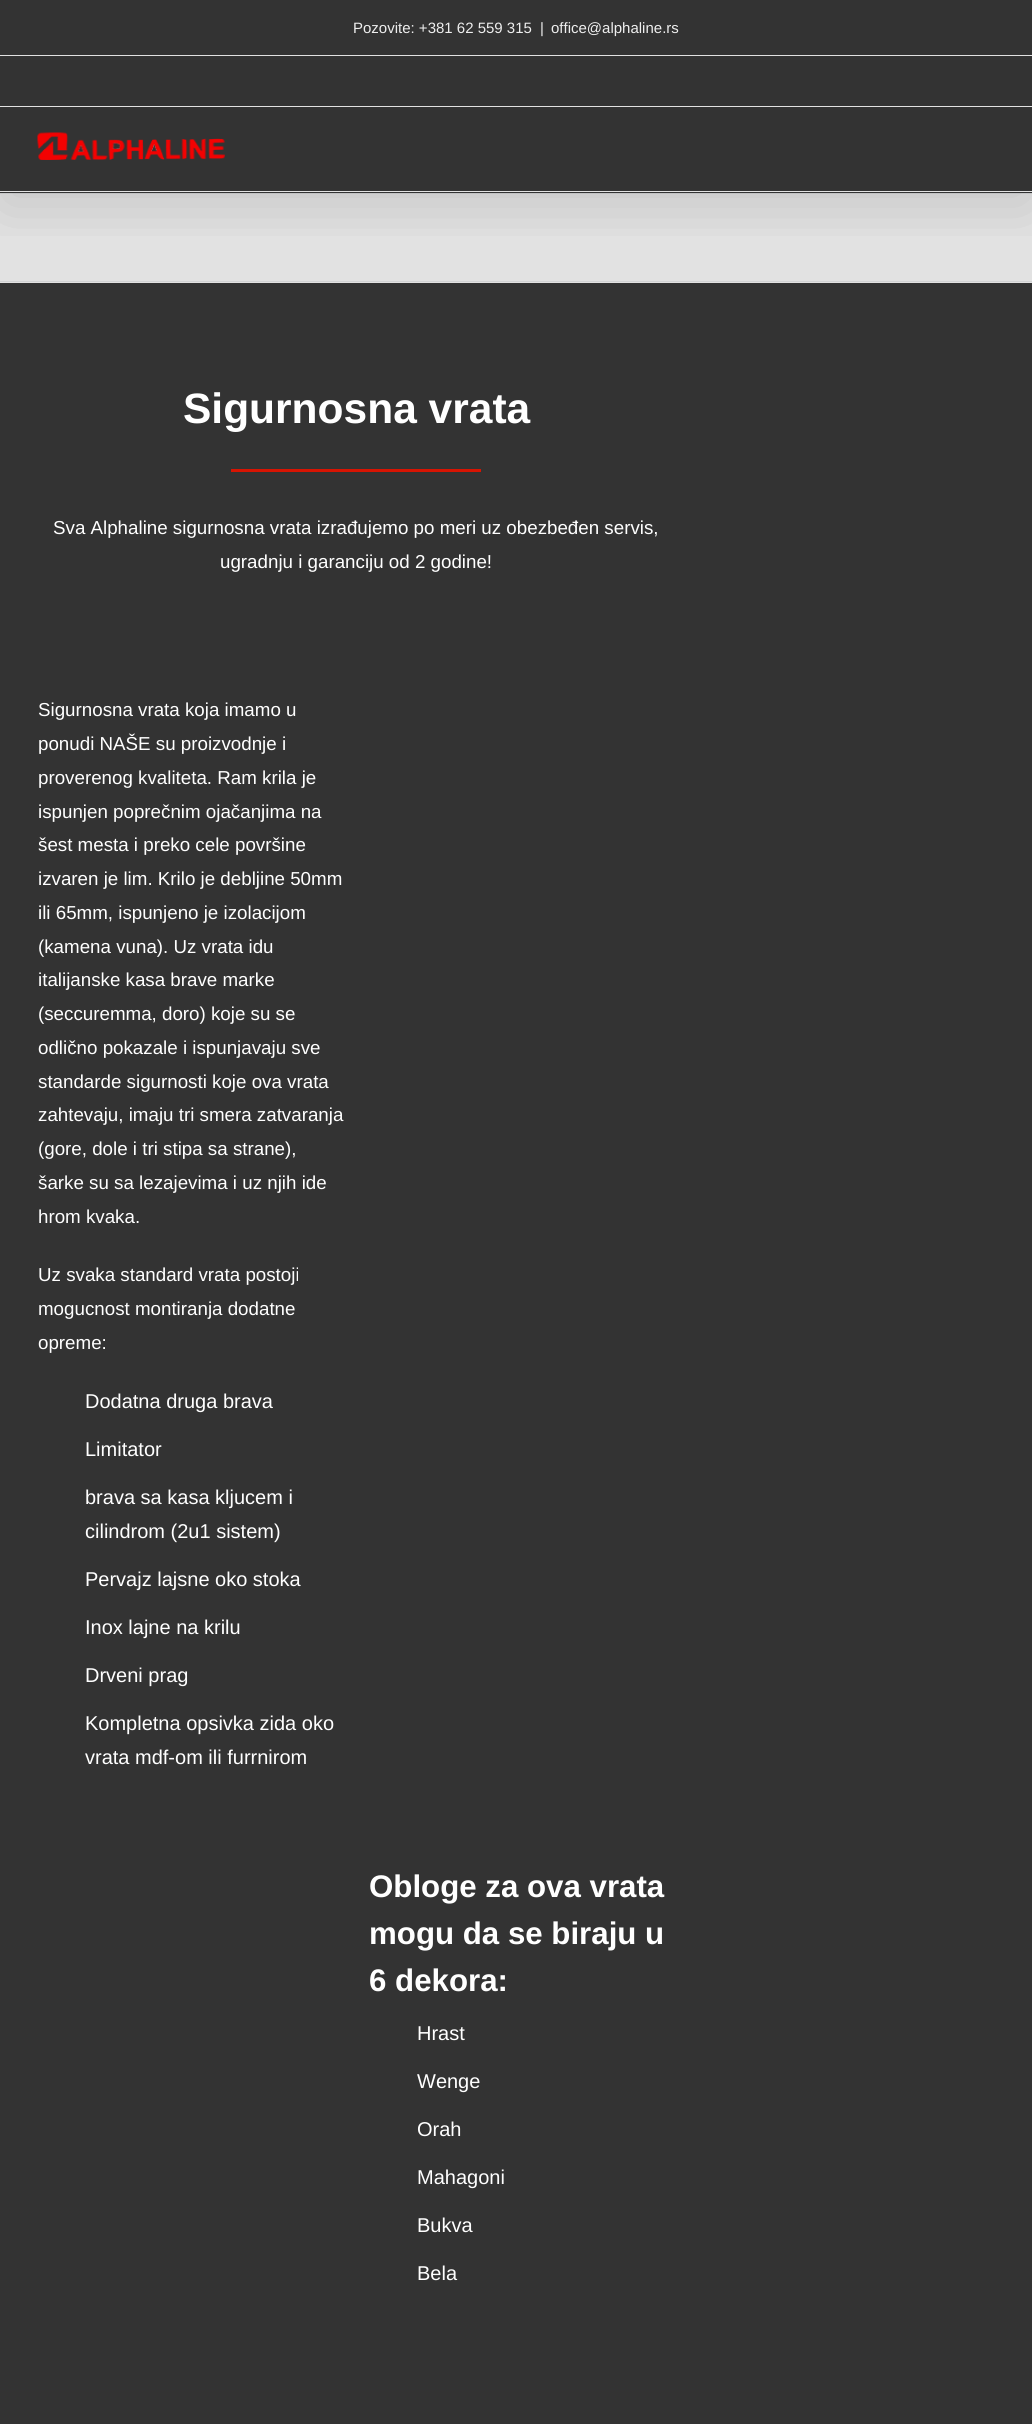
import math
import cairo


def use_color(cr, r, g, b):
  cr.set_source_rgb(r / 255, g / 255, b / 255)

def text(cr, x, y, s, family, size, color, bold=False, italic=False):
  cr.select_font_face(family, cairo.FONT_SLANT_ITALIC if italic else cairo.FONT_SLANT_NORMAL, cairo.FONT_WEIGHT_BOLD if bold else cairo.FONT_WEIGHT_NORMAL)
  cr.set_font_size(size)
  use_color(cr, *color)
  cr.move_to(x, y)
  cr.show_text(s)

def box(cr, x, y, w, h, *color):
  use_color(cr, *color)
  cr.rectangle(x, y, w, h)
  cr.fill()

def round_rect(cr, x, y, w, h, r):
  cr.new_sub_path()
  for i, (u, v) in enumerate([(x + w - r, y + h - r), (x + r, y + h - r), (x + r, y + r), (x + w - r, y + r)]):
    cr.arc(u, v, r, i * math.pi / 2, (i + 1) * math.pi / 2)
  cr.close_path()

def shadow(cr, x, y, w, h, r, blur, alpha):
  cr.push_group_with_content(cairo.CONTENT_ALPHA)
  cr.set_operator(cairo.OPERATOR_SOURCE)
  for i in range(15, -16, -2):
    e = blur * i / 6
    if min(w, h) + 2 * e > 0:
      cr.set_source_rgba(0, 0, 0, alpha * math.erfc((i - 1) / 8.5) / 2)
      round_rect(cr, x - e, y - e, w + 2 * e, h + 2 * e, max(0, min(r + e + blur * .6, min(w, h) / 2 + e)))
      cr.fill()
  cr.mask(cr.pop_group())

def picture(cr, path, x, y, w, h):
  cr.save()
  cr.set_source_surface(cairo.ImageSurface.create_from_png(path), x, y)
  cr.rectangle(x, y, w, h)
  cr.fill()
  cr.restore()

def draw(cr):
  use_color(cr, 51, 51, 51)
  cr.paint()
  box(cr, 0, 194, 1032, 89, 226, 226, 226)
  box(cr, 0, 193, 1032, 1, 210, 211, 212)
  box(cr, 0, 281, 1032, 1, 210, 211, 212)
  cr.save()
  cr.rectangle(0, 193, 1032, 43)
  cr.clip()
  use_color(cr, 0, 0, 0)
  shadow(cr, 3, 15, 1027, 188, 0, 31, 0.14)
  cr.restore()
  box(cr, 0, 106, 1032, 1, 226, 226, 226)
  box(cr, 0, 55, 1032, 1, 226, 226, 226)
  box(cr, 0, 191, 1032, 1, 226, 226, 226)
  picture(cr, "img_01.png", 37, 132, 188, 28)
  box(cr, 231, 469, 250, 3, 215, 20, 2)
  text(cr, 353, 33, "Pozovite: +381 62 559 315", "Liberation Sans", 15, (238, 238, 238))
  text(cr, 540, 33, "|", "Liberation Sans", 15, (238, 238, 238))
  text(cr, 551, 33, "office@alphaline.rs", "Liberation Sans", 15, (238, 238, 238))
  text(cr, 183, 423, "Sigurnosna vrata", "Liberation Sans", 42.5, (255, 255, 255), bold=True)
  text(cr, 53, 534, "Sva Alphaline sigurnosna vrata izrađujemo po meri uz obezbеđen servis,", "Liberation Sans", 18.75, (255, 255, 255))
  text(cr, 220, 568, "ugradnju i garanciju od 2 godine!", "Liberation Sans", 18.75, (255, 255, 255))
  text(cr, 38, 716, "Sigurnosna vrata koja imamo u", "Liberation Sans", 18.75, (255, 255, 255))
  text(cr, 38, 750, "ponudi NAŠE su proizvodnje i", "Liberation Sans", 18.75, (255, 255, 255))
  text(cr, 38, 784, "proverenog kvaliteta. Ram krila je", "Liberation Sans", 18.75, (255, 255, 255))
  text(cr, 38, 818, "ispunjen poprečnim ojačanjima na", "Liberation Sans", 18.75, (255, 255, 255))
  text(cr, 38, 851, "šest mesta i preko cele površine", "Liberation Sans", 18.75, (255, 255, 255))
  text(cr, 38, 885, "izvaren je lim. Krilo je debljine 50mm", "Liberation Sans", 18.75, (255, 255, 255))
  text(cr, 38, 919, "ili 65mm, ispunjeno je izolacijom", "Liberation Sans", 18.75, (255, 255, 255))
  text(cr, 38, 953, "(kamena vuna). Uz vrata idu", "Liberation Sans", 18.75, (255, 255, 255))
  text(cr, 38, 986, "italijanske kasa brave marke", "Liberation Sans", 18.75, (255, 255, 255))
  text(cr, 38, 1020, "(seccuremma, doro) koje su se", "Liberation Sans", 18.75, (255, 255, 255))
  text(cr, 38, 1054, "odlično pokazale i ispunjavaju sve", "Liberation Sans", 18.75, (255, 255, 255))
  text(cr, 38, 1088, "standarde sigurnosti koje ova vrata", "Liberation Sans", 18.75, (255, 255, 255))
  text(cr, 38, 1121, "zahtevaju, imaju tri smera zatvaranja", "Liberation Sans", 18.75, (255, 255, 255))
  text(cr, 38, 1155, "(gore, dole i tri stipa sa strane),", "Liberation Sans", 18.75, (255, 255, 255))
  text(cr, 38, 1189, "šarke su sa lezajevima i uz njih ide", "Liberation Sans", 18.75, (255, 255, 255))
  text(cr, 38, 1223, "hrom kvaka.", "Liberation Sans", 18.75, (255, 255, 255))
  text(cr, 38, 1281, "Uz svaka standard vrata postoji", "Liberation Sans", 18.75, (255, 255, 255))
  text(cr, 38, 1315, "mogucnost montiranja dodatne", "Liberation Sans", 18.75, (255, 255, 255))
  text(cr, 38, 1349, "opreme:", "Liberation Sans", 18.75, (255, 255, 255))
  text(cr, 85, 1408, "Dodatna druga brava", "Liberation Sans", 20, (255, 255, 255))
  text(cr, 85, 1456, "Limitator", "Liberation Sans", 20, (255, 255, 255))
  text(cr, 85, 1504, "brava sa kasa kljucem i", "Liberation Sans", 20, (255, 255, 255))
  text(cr, 85, 1538, "cilindrom (2u1 sistem)", "Liberation Sans", 20, (255, 255, 255))
  text(cr, 85, 1586, "Pervajz lajsne oko stoka", "Liberation Sans", 20, (255, 255, 255))
  text(cr, 85, 1634, "Inox lajne na krilu", "Liberation Sans", 20, (255, 255, 255))
  text(cr, 85, 1682, "Drveni prag", "Liberation Sans", 20, (255, 255, 255))
  text(cr, 85, 1730, "Kompletna opsivka zida oko", "Liberation Sans", 20, (255, 255, 255))
  text(cr, 85, 1764, "vrata mdf-om ili furrnirom", "Liberation Sans", 20, (255, 255, 255))
  text(cr, 369, 1897, "Obloge za ova vrata", "Liberation Sans", 31.25, (255, 255, 255), bold=True)
  text(cr, 369, 1944, "mogu da se biraju u", "Liberation Sans", 31.25, (255, 255, 255), bold=True)
  text(cr, 369, 1991, "6 dekora:", "Liberation Sans", 31.25, (255, 255, 255), bold=True)
  text(cr, 417, 2040, "Hrast", "Liberation Sans", 20, (255, 255, 255))
  text(cr, 417, 2088, "Wenge", "Liberation Sans", 20, (255, 255, 255))
  text(cr, 417, 2136, "Orah", "Liberation Sans", 20, (255, 255, 255))
  text(cr, 417, 2184, "Mahagoni", "Liberation Sans", 20, (255, 255, 255))
  text(cr, 417, 2232, "Bukva", "Liberation Sans", 20, (255, 255, 255))
  text(cr, 417, 2280, "Bela", "Liberation Sans", 20, (255, 255, 255))


surface = cairo.ImageSurface(cairo.FORMAT_RGB24, 1032, 2424)
cr = cairo.Context(surface)
options = cairo.FontOptions()
options.set_hint_metrics(cairo.HINT_METRICS_OFF)
options.set_hint_style(cairo.HINT_STYLE_NONE)
cr.set_font_options(options)
cr.set_miter_limit(4)
draw(cr)
surface.write_to_png("out.png")
